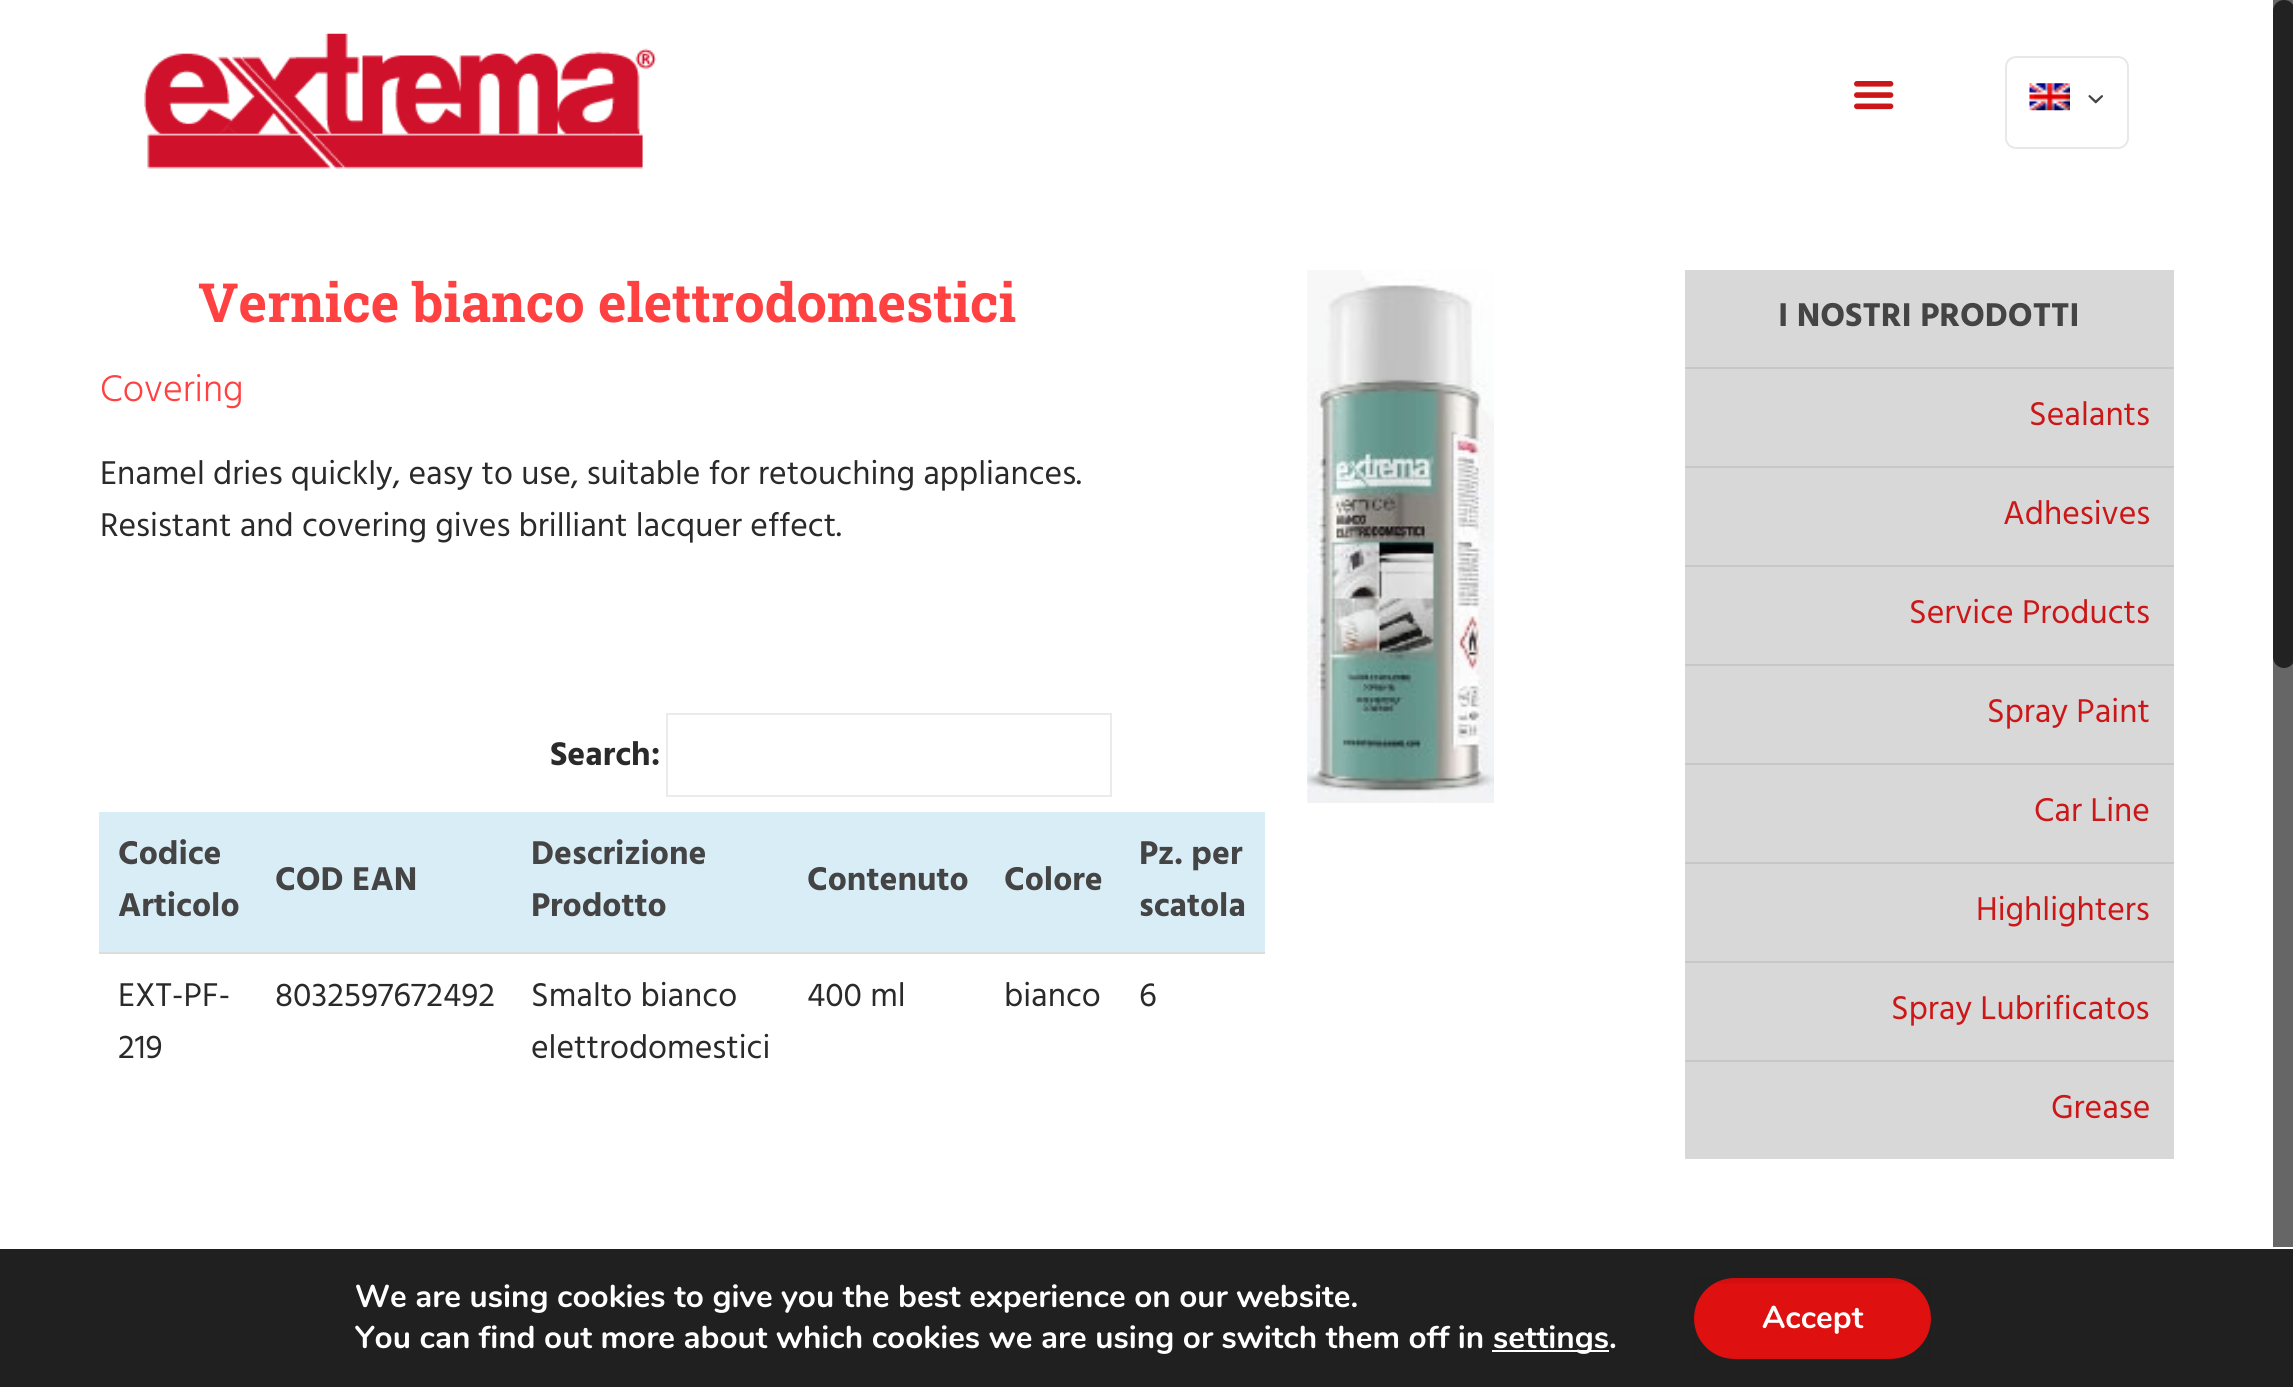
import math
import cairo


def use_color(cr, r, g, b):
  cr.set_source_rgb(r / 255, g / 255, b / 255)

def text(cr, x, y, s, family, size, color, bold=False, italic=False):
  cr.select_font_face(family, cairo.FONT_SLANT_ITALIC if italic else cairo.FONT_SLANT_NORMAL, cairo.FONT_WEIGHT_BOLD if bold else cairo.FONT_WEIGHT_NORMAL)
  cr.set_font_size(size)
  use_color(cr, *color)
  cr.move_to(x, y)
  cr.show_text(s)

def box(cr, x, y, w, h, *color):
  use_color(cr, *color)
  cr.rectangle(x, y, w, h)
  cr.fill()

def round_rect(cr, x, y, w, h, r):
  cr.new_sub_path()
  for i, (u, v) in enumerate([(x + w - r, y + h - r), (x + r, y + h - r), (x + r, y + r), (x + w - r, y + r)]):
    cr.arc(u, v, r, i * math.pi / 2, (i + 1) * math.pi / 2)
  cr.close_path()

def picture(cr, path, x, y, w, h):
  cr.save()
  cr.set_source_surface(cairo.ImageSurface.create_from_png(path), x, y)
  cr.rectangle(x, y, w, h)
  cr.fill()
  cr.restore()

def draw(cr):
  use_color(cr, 255, 255, 255)
  cr.paint()
  picture(cr, "img_01.png", 144, 33, 513, 136)
  picture(cr, "img_02.png", 1854, 81, 40, 29)
  round_rect(cr, 2006, 57, 122, 91, 10)
  use_color(cr, 232, 232, 232)
  cr.stroke()
  picture(cr, "img_03.png", 2029, 83, 41, 28)
  picture(cr, "img_04.png", 2088, 95, 16, 9)
  cr.rectangle(667, 714, 444, 82)
  use_color(cr, 235, 235, 235)
  cr.stroke()
  box(cr, 99, 812, 1166, 140, 217, 237, 247)
  box(cr, 99, 952, 1166, 2, 221, 221, 221)
  picture(cr, "img_05.png", 1307, 270, 187, 533)
  box(cr, 1685, 270, 489, 889, 216, 216, 216)
  box(cr, 1685, 367, 489, 2, 199, 199, 199)
  box(cr, 1685, 466, 489, 2, 199, 199, 199)
  box(cr, 1685, 565, 489, 2, 199, 199, 199)
  box(cr, 1685, 664, 489, 2, 199, 199, 199)
  box(cr, 1685, 763, 489, 2, 199, 199, 199)
  box(cr, 1685, 862, 489, 2, 199, 199, 199)
  box(cr, 1685, 961, 489, 2, 199, 199, 199)
  box(cr, 1685, 1060, 489, 2, 199, 199, 199)
  box(cr, 2273, 0, 20, 1247, 102, 102, 102)
  use_color(cr, 34, 34, 34)
  round_rect(cr, 2273, 0, 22, 668, 11)
  cr.fill()
  box(cr, 0, 1249, 2293, 138, 32, 32, 32)
  box(cr, 1492, 1350, 117, 2, 255, 255, 255)
  use_color(cr, 222, 16, 16)
  round_rect(cr, 1694, 1278, 237, 81, 40.5)
  cr.fill()
  picture(cr, "img_06.png", 1715, 1278, 194, 6)
  cr.rectangle(1695, 1279, 235, 79)
  cr.set_source_rgba(0, 0, 0, 0.03)
  cr.stroke()
  text(cr, 198, 322, "Vernice bianco elettrodomestici", "Roboto Slab", 54, (255, 65, 65), bold=True)
  text(cr, 100, 401, "Covering", "Hind Light", 38, (255, 65, 65))
  text(cr, 100, 484, "Enamel dries quickly, easy to use, suitable for retouching appliances.", "Hind", 33.75, (42, 42, 42))
  text(cr, 100, 536, "Resistant and covering gives brilliant lacquer effect.", "Hind", 33.75, (42, 42, 42))
  text(cr, 550, 765, "Search:", "Hind", 33.75, (42, 42, 42), bold=True)
  text(cr, 118, 864, "Codice", "Hind", 33.75, (68, 68, 68), bold=True)
  text(cr, 118, 916, "Articolo", "Hind", 33.75, (68, 68, 68), bold=True)
  text(cr, 275, 890, "COD EAN", "Hind", 33.75, (68, 68, 68), bold=True)
  text(cr, 531, 864, "Descrizione", "Hind", 33.75, (68, 68, 68), bold=True)
  text(cr, 531, 916, "Prodotto", "Hind", 33.75, (68, 68, 68), bold=True)
  text(cr, 807, 890, "Contenuto", "Hind", 33.75, (68, 68, 68), bold=True)
  text(cr, 1004, 890, "Colore", "Hind", 33.75, (68, 68, 68), bold=True)
  text(cr, 1139, 864, "Pz. per", "Hind", 33.75, (68, 68, 68), bold=True)
  text(cr, 1139, 916, "scatola", "Hind", 33.75, (68, 68, 68), bold=True)
  text(cr, 118, 1006, "EXT-PF-", "Hind", 33.75, (42, 42, 42))
  text(cr, 118, 1058, "219", "Hind", 33.75, (42, 42, 42))
  text(cr, 275, 1006, "8032597672492", "Hind", 33.75, (42, 42, 42))
  text(cr, 531, 1006, "Smalto bianco", "Hind", 33.75, (42, 42, 42))
  text(cr, 531, 1058, "elettrodomestici", "Hind", 33.75, (42, 42, 42))
  text(cr, 807, 1006, "400 ml", "Hind", 33.75, (42, 42, 42))
  text(cr, 1004, 1006, "bianco", "Hind", 33.75, (42, 42, 42))
  text(cr, 1139, 1006, "6", "Hind", 33.75, (42, 42, 42))
  text(cr, 1778, 326, "I NOSTRI PRODOTTI", "Hind", 33.75, (68, 68, 68), bold=True)
  text(cr, 2029, 425, "Sealants", "Hind", 33.75, (204, 23, 24))
  text(cr, 2003, 524, "Adhesives", "Hind", 33.75, (204, 23, 24))
  text(cr, 1909, 623, "Service Products", "Hind", 33.75, (204, 23, 24))
  text(cr, 1987, 722, "Spray Paint", "Hind", 33.75, (204, 23, 24))
  text(cr, 2034, 821, "Car Line", "Hind", 33.75, (204, 23, 24))
  text(cr, 1976, 920, "Highlighters", "Hind", 33.75, (204, 23, 24))
  text(cr, 1891, 1019, "Spray Lubrificatos", "Hind", 33.75, (204, 23, 24))
  text(cr, 2051, 1118, "Grease", "Hind", 33.75, (204, 23, 24))
  text(cr, 355, 1307, "We are using cookies to give you the best experience on our website.", "Nunito", 31.5, (255, 255, 255), bold=True)
  text(cr, 355, 1348, "You can find out more about which cookies we are using or switch them off in", "Nunito", 31.5, (255, 255, 255), bold=True)
  text(cr, 1493, 1348, "settings.", "Nunito", 31.5, (255, 255, 255), bold=True)
  text(cr, 1762, 1328, "Accept", "Nunito", 31.5, (255, 255, 255), bold=True)


surface = cairo.ImageSurface(cairo.FORMAT_RGB24, 2293, 1387)
cr = cairo.Context(surface)
options = cairo.FontOptions()
options.set_hint_metrics(cairo.HINT_METRICS_OFF)
options.set_hint_style(cairo.HINT_STYLE_NONE)
cr.set_font_options(options)
cr.set_miter_limit(4)
draw(cr)
surface.write_to_png("out.png")
